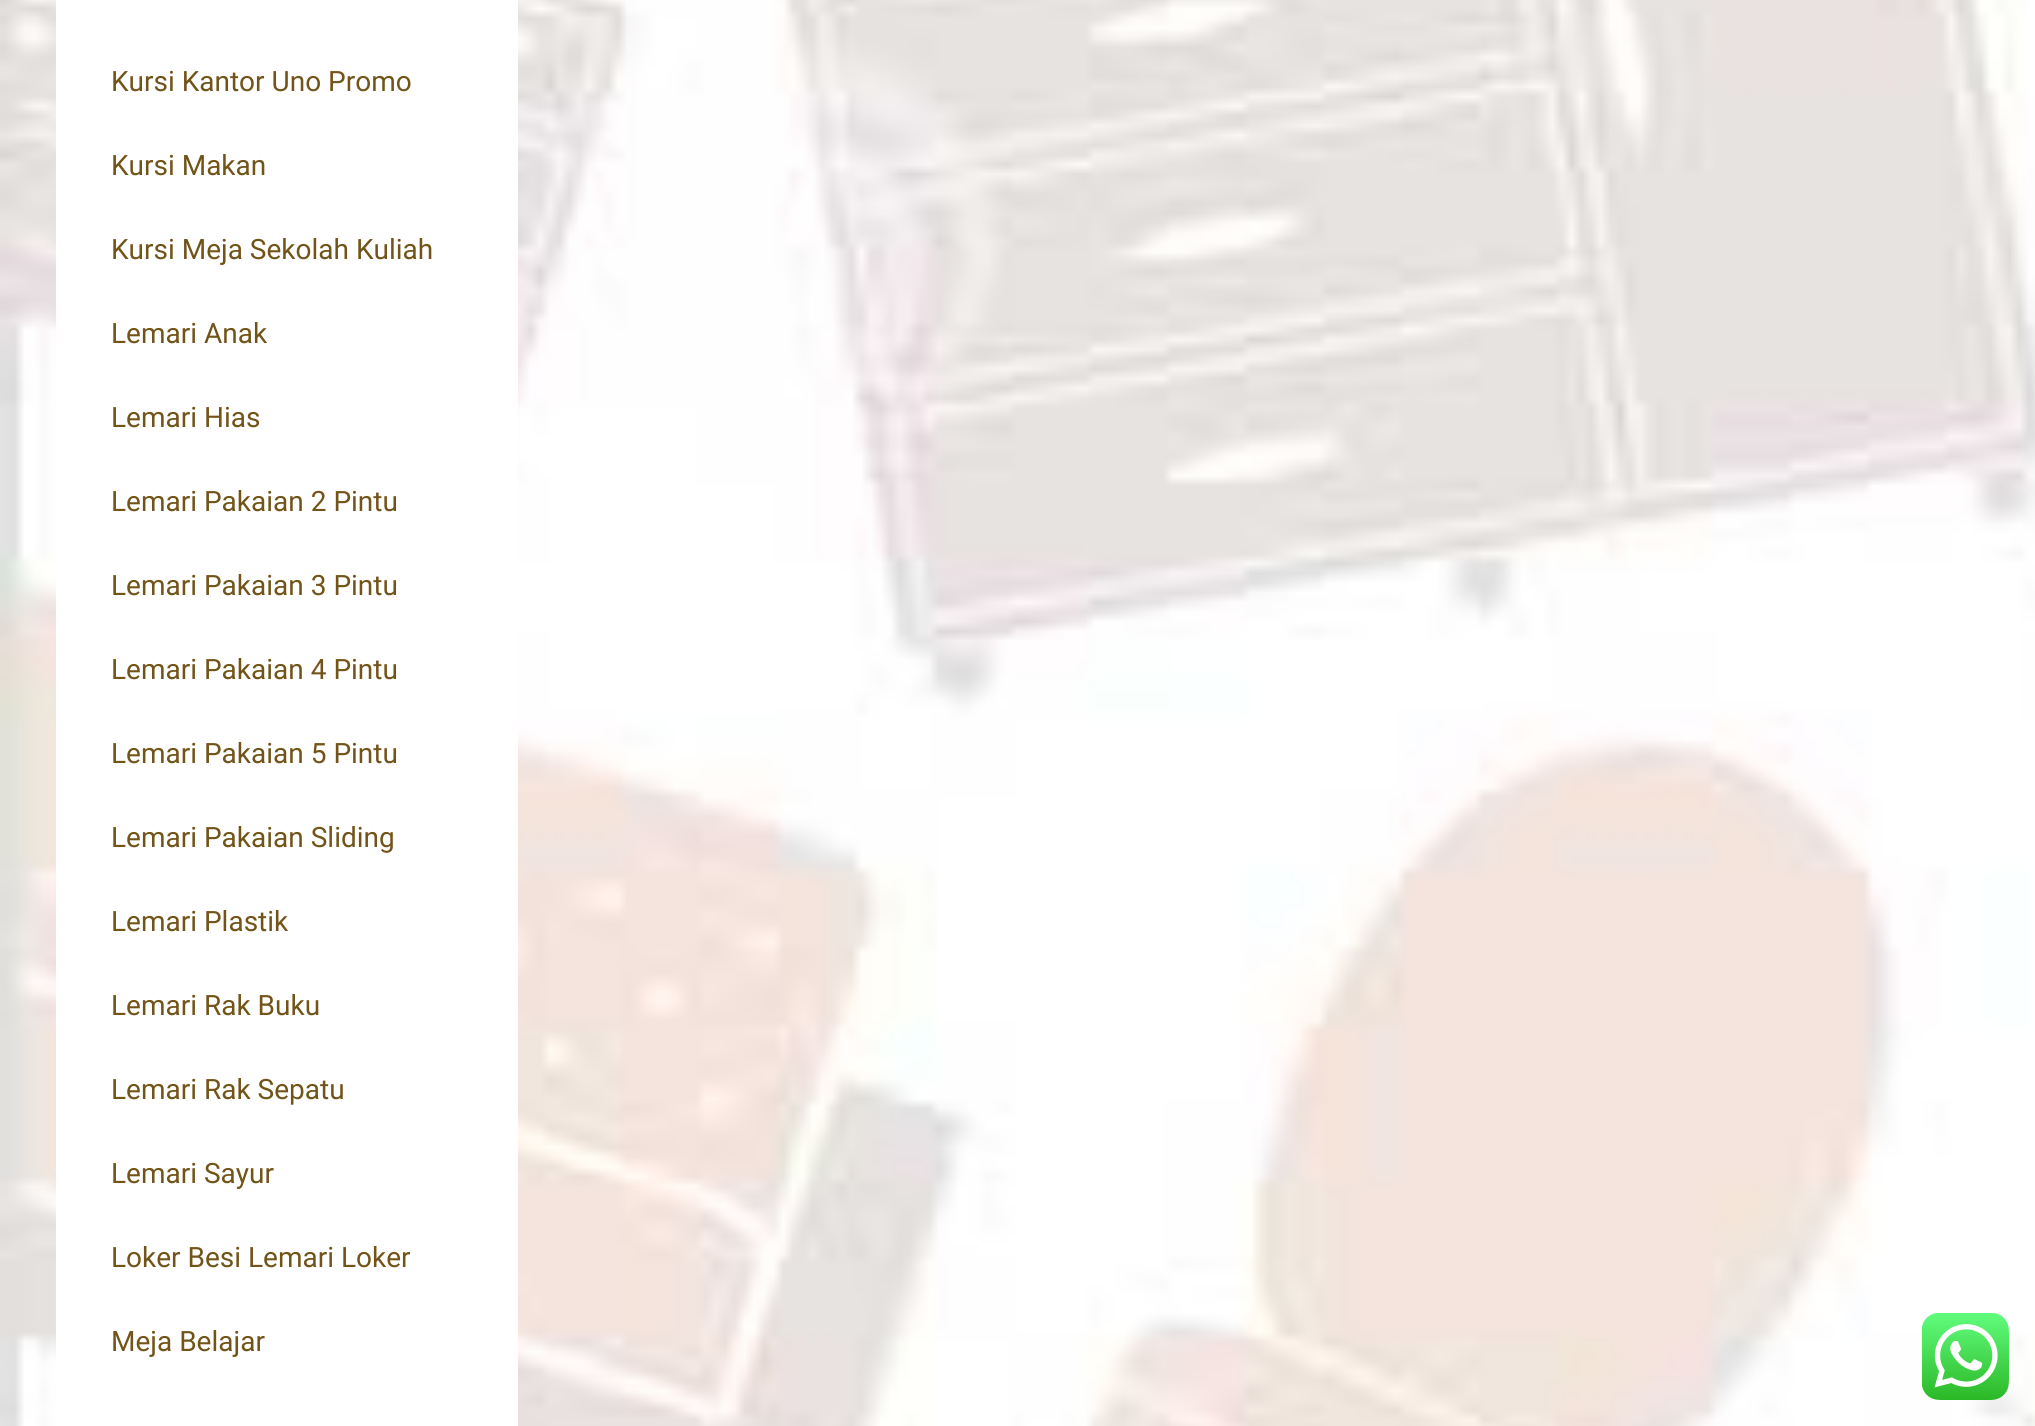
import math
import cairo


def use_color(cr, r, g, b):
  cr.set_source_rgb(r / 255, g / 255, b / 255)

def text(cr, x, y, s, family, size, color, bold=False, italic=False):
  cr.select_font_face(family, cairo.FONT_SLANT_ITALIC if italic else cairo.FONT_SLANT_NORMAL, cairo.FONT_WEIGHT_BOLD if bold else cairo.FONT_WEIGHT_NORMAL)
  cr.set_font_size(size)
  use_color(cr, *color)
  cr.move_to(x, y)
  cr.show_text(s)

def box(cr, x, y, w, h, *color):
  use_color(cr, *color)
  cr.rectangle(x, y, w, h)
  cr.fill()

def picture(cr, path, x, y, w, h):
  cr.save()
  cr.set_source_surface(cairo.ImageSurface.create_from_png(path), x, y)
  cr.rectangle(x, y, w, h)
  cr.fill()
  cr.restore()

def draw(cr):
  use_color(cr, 255, 255, 255)
  cr.paint()
  picture(cr, "img_01.png", 0, 0, 2035, 1426)
  box(cr, 56, 0, 462, 1426, 255, 255, 255)
  picture(cr, "img_02.png", 1922, 1313, 87, 87)
  text(cr, 111, 91, "Kursi Kantor Uno Promo", "Roboto", 28, (114, 84, 25))
  text(cr, 111, 175, "Kursi Makan", "Roboto", 28, (114, 84, 25))
  text(cr, 111, 259, "Kursi Meja Sekolah Kuliah", "Roboto", 28, (114, 84, 25))
  text(cr, 111, 343, "Lemari Anak", "Roboto", 28, (114, 84, 25))
  text(cr, 111, 427, "Lemari Hias", "Roboto", 28, (114, 84, 25))
  text(cr, 111, 511, "Lemari Pakaian 2 Pintu", "Roboto", 28, (114, 84, 25))
  text(cr, 111, 595, "Lemari Pakaian 3 Pintu", "Roboto", 28, (114, 84, 25))
  text(cr, 111, 679, "Lemari Pakaian 4 Pintu", "Roboto", 28, (114, 84, 25))
  text(cr, 111, 763, "Lemari Pakaian 5 Pintu", "Roboto", 28, (114, 84, 25))
  text(cr, 111, 847, "Lemari Pakaian Sliding", "Roboto", 28, (114, 84, 25))
  text(cr, 111, 931, "Lemari Plastik", "Roboto", 28, (114, 84, 25))
  text(cr, 111, 1015, "Lemari Rak Buku", "Roboto", 28, (114, 84, 25))
  text(cr, 111, 1099, "Lemari Rak Sepatu", "Roboto", 28, (114, 84, 25))
  text(cr, 111, 1183, "Lemari Sayur", "Roboto", 28, (114, 84, 25))
  text(cr, 111, 1267, "Loker Besi Lemari Loker", "Roboto", 28, (114, 84, 25))
  text(cr, 111, 1351, "Meja Belajar", "Roboto", 28, (114, 84, 25))


surface = cairo.ImageSurface(cairo.FORMAT_RGB24, 2035, 1426)
cr = cairo.Context(surface)
options = cairo.FontOptions()
options.set_hint_metrics(cairo.HINT_METRICS_OFF)
options.set_hint_style(cairo.HINT_STYLE_NONE)
cr.set_font_options(options)
cr.set_miter_limit(4)
draw(cr)
surface.write_to_png("out.png")
